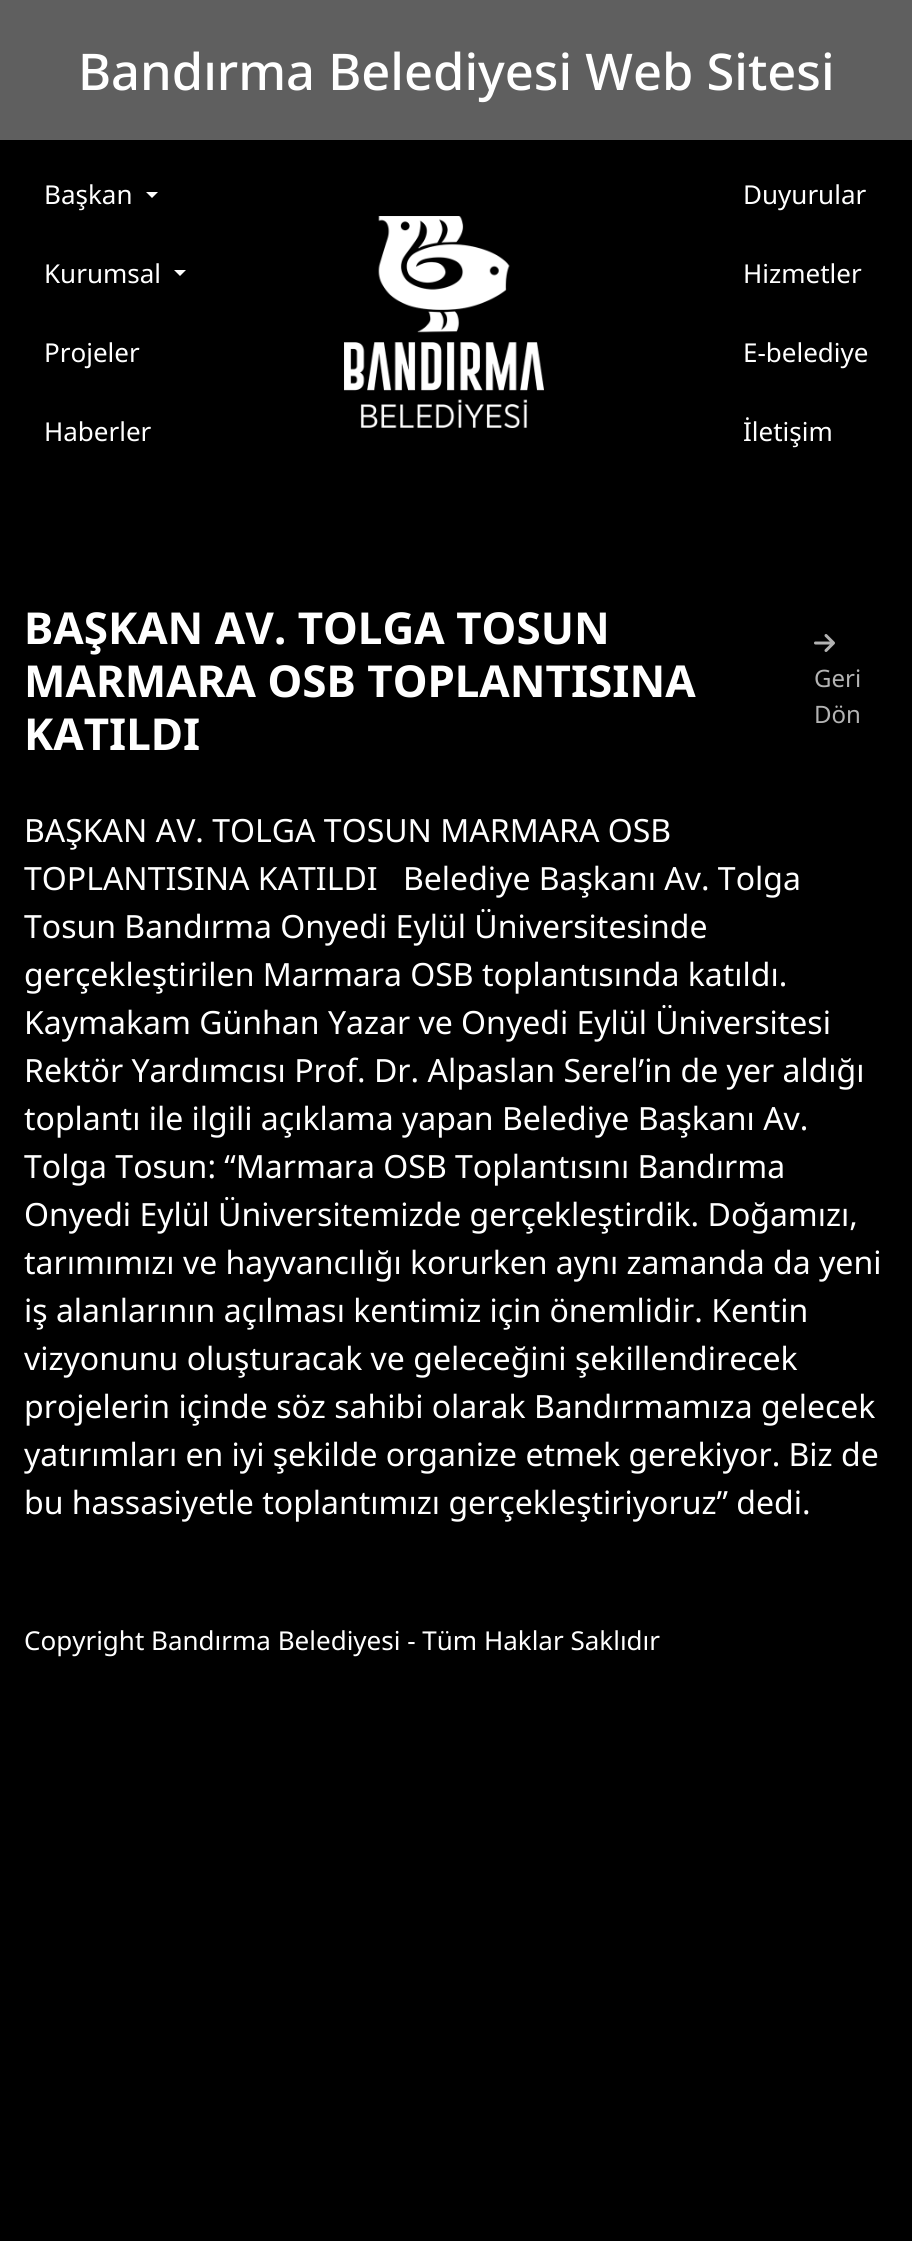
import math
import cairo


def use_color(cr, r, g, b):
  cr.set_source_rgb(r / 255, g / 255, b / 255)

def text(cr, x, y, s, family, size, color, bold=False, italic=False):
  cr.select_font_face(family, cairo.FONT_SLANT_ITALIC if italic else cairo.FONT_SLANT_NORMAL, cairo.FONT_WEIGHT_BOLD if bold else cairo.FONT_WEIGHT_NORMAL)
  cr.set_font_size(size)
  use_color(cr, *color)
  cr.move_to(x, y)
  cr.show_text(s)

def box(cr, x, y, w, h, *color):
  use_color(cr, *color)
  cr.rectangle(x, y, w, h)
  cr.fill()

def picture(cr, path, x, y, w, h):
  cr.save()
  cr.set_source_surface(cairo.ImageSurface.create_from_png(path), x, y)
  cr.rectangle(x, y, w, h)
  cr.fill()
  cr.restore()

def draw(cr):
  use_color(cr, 0, 0, 0)
  cr.paint()
  box(cr, 0, 0, 912, 140, 95, 95, 95)
  use_color(cr, 255, 255, 255)
  cr.new_path()
  cr.move_to(146, 192)
  cr.line_to(158, 192)
  cr.line_to(152, 198)
  cr.close_path()
  cr.fill()
  cr.new_path()
  cr.move_to(174, 270)
  cr.line_to(186, 270)
  cr.line_to(180, 276)
  cr.close_path()
  cr.fill()
  picture(cr, "img_01.png", 344, 216, 200, 212)
  picture(cr, "img_02.png", 814, 634, 21, 18)
  text(cr, 78, 90, "Bandırma Belediyesi Web Sitesi", "Noto Sans Medium", 50.6, (255, 255, 255))
  text(cr, 44, 204, "Başkan", "Noto Sans", 26, (255, 255, 255))
  text(cr, 44, 283, "Kurumsal", "Noto Sans", 26, (255, 255, 255))
  text(cr, 44, 362, "Projeler", "Noto Sans", 26, (255, 255, 255))
  text(cr, 44, 441, "Haberler", "Noto Sans", 26, (255, 255, 255))
  text(cr, 743, 204, "Duyurular", "Noto Sans", 26, (255, 255, 255))
  text(cr, 743, 283, "Hizmetler", "Noto Sans", 26, (255, 255, 255))
  text(cr, 743, 362, "E-belediye", "Noto Sans", 26, (255, 255, 255))
  text(cr, 743, 441, "İletişim", "Noto Sans", 26, (255, 255, 255))
  text(cr, 24, 644, "BAŞKAN AV. TOLGA TOSUN", "Noto Sans", 44, (255, 255, 255), bold=True)
  text(cr, 24, 697, "MARMARA OSB TOPLANTISINA", "Noto Sans", 44, (255, 255, 255), bold=True)
  text(cr, 24, 750, "KATILDI", "Noto Sans", 44, (255, 255, 255), bold=True)
  text(cr, 814, 687, "Geri", "Noto Sans", 24, (179, 179, 179))
  text(cr, 814, 723, "Dön", "Noto Sans", 24, (179, 179, 179))
  text(cr, 24, 842, "BAŞKAN AV. TOLGA TOSUN MARMARA OSB", "Noto Sans", 32, (255, 255, 255))
  text(cr, 24, 890, "TOPLANTISINA KATILDI", "Noto Sans", 32, (255, 255, 255))
  text(cr, 403, 890, "Belediye Başkanı Av. Tolga", "Noto Sans", 32, (255, 255, 255))
  text(cr, 24, 938, "Tosun Bandırma Onyedi Eylül Üniversitesinde", "Noto Sans", 32, (255, 255, 255))
  text(cr, 24, 986, "gerçekleştirilen Marmara OSB toplantısında katıldı.", "Noto Sans", 32, (255, 255, 255))
  text(cr, 24, 1034, "Kaymakam Günhan Yazar ve Onyedi Eylül Üniversitesi", "Noto Sans", 32, (255, 255, 255))
  text(cr, 24, 1082, "Rektör Yardımcısı Prof. Dr. Alpaslan Serel’in de yer aldığı", "Noto Sans", 32, (255, 255, 255))
  text(cr, 24, 1130, "toplantı ile ilgili açıklama yapan Belediye Başkanı Av.", "Noto Sans", 32, (255, 255, 255))
  text(cr, 24, 1178, "Tolga Tosun: “Marmara OSB Toplantısını Bandırma", "Noto Sans", 32, (255, 255, 255))
  text(cr, 24, 1226, "Onyedi Eylül Üniversitemizde gerçekleştirdik. Doğamızı,", "Noto Sans", 32, (255, 255, 255))
  text(cr, 24, 1274, "tarımımızı ve hayvancılığı korurken aynı zamanda da yeni", "Noto Sans", 32, (255, 255, 255))
  text(cr, 24, 1322, "iş alanlarının açılması kentimiz için önemlidir. Kentin", "Noto Sans", 32, (255, 255, 255))
  text(cr, 24, 1370, "vizyonunu oluşturacak ve geleceğini şekillendirecek", "Noto Sans", 32, (255, 255, 255))
  text(cr, 24, 1418, "projelerin içinde söz sahibi olarak Bandırmamıza gelecek", "Noto Sans", 32, (255, 255, 255))
  text(cr, 24, 1466, "yatırımları en iyi şekilde organize etmek gerekiyor. Biz de", "Noto Sans", 32, (255, 255, 255))
  text(cr, 24, 1514, "bu hassasiyetle toplantımızı gerçekleştiriyoruz” dedi.", "Noto Sans", 32, (255, 255, 255))
  text(cr, 24, 1650, "Copyright Bandırma Belediyesi - Tüm Haklar Saklıdır", "Noto Sans", 26, (255, 255, 255))


surface = cairo.ImageSurface(cairo.FORMAT_RGB24, 912, 2241)
cr = cairo.Context(surface)
options = cairo.FontOptions()
options.set_hint_metrics(cairo.HINT_METRICS_OFF)
options.set_hint_style(cairo.HINT_STYLE_NONE)
cr.set_font_options(options)
cr.set_miter_limit(4)
draw(cr)
surface.write_to_png("out.png")
